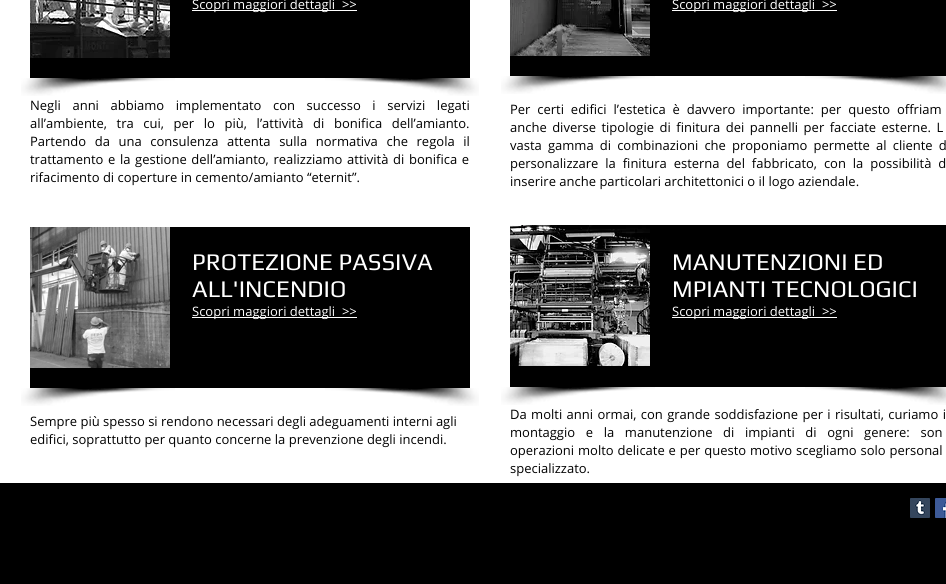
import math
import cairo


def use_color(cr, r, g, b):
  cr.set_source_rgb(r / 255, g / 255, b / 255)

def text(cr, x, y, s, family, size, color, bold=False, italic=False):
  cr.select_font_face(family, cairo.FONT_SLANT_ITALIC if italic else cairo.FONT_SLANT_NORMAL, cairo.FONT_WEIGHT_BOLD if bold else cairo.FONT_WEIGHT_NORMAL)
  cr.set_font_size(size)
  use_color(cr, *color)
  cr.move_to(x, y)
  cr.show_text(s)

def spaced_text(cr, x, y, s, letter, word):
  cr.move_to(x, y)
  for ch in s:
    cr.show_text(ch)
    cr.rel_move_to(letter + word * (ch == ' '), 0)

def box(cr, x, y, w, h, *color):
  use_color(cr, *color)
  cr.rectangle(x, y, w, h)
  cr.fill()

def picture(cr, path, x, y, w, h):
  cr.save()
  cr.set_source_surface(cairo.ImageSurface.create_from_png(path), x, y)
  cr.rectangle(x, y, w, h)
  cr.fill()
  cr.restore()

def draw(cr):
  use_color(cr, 255, 255, 255)
  cr.paint()
  box(cr, 30, 0, 440, 78, 0, 0, 0)
  picture(cr, "img_01.png", 30, 0, 140, 58)
  box(cr, 192, 10, 165, 1, 255, 255, 255)
  picture(cr, "img_02.png", 21, 78, 154, 18)
  picture(cr, "img_03.png", 325, 78, 154, 18)
  box(cr, 510, 0, 436, 76, 0, 0, 0)
  picture(cr, "img_04.png", 510, 0, 140, 56)
  box(cr, 672, 10, 165, 1, 255, 255, 255)
  picture(cr, "img_02.png", 501, 76, 154, 18)
  picture(cr, "img_05.png", 805, 76, 141, 18)
  box(cr, 30, 227, 440, 161, 0, 0, 0)
  picture(cr, "img_06.png", 30, 227, 140, 141)
  box(cr, 192, 317, 165, 1, 255, 255, 255)
  picture(cr, "img_02.png", 21, 388, 154, 18)
  picture(cr, "img_03.png", 325, 388, 154, 18)
  box(cr, 510, 225, 436, 162, 0, 0, 0)
  picture(cr, "img_07.png", 510, 225, 140, 141)
  box(cr, 672, 317, 165, 1, 255, 255, 255)
  picture(cr, "img_02.png", 501, 387, 154, 18)
  picture(cr, "img_05.png", 805, 387, 141, 18)
  box(cr, 0, 483, 946, 101, 0, 0, 0)
  picture(cr, "img_08.png", 910, 498, 20, 20)
  picture(cr, "img_09.png", 935, 498, 11, 20)
  text(cr, 192, 9, "Scopri maggiori dettagli  >>", "Open Sans", 13, (255, 255, 255))
  text(cr, 672, 9, "Scopri maggiori dettagli  >>", "Open Sans", 13, (255, 255, 255))
  use_color(cr, 0, 0, 0)
  spaced_text(cr, 30, 110, "Negli anni abbiamo implementato con successo i servizi legati", 0, 8.25)
  spaced_text(cr, 30, 128, "all’ambiente, tra cui, per lo più, l’attività di bonifica dell’amianto.", 0, 6.25)
  spaced_text(cr, 30, 146, "Partendo da una consulenza attenta sulla normativa che regola il", 0, 5.25)
  spaced_text(cr, 30, 164, "trattamento e la gestione dell’amianto, realizziamo attività di bonifica e", 0, 1.25)
  text(cr, 30, 182, "rifacimento di coperture in cemento/amianto “eternit”.", "Open Sans", 13, (0, 0, 0))
  spaced_text(cr, 510, 114, "Per certi edifici l’estetica è davvero importante: per questo offriam", 0, 3.5)
  spaced_text(cr, 510, 132, "anche diverse tipologie di finitura dei pannelli per facciate esterne. L", 0, 2.1)
  spaced_text(cr, 510, 150, "vasta gamma di combinazioni che proponiamo permette al cliente d", 0, 2.75)
  spaced_text(cr, 510, 168, "personalizzare la finitura esterna del fabbricato, con la possibilità d", 0, 3.5)
  text(cr, 510, 186, "inserire anche particolari architettonici o il logo aziendale.", "Open Sans", 13, (0, 0, 0))
  text(cr, 192, 270, "PROTEZIONE PASSIVA", "Play", 24, (255, 255, 255))
  text(cr, 192, 297, "ALL'INCENDIO", "Play", 24, (255, 255, 255))
  text(cr, 192, 316, "Scopri maggiori dettagli  >>", "Open Sans", 13, (255, 255, 255))
  text(cr, 672, 270, "MANUTENZIONI ED", "Play", 24, (255, 255, 255))
  text(cr, 672, 297, "MPIANTI TECNOLOGICI", "Play", 24, (255, 255, 255))
  text(cr, 672, 316, "Scopri maggiori dettagli  >>", "Open Sans", 13, (255, 255, 255))
  text(cr, 30, 426, "Sempre più spesso si rendono necessari degli adeguamenti interni agli", "Open Sans", 13, (0, 0, 0))
  text(cr, 30, 444, "edifici, soprattutto per quanto concerne la prevenzione degli incendi.", "Open Sans", 13, (0, 0, 0))
  spaced_text(cr, 510, 419, "Da molti anni ormai, con grande soddisfazione per i risultati, curiamo i", 0, 1)
  spaced_text(cr, 510, 437, "montaggio e la manutenzione di impianti di ogni genere: son", 0, 7.25)
  spaced_text(cr, 510, 455, "operazioni molto delicate e per questo motivo scegliamo solo personal", 0, 0.5)
  text(cr, 510, 473, "specializzato.", "Open Sans", 13, (0, 0, 0))


surface = cairo.ImageSurface(cairo.FORMAT_RGB24, 946, 584)
cr = cairo.Context(surface)
options = cairo.FontOptions()
options.set_hint_metrics(cairo.HINT_METRICS_OFF)
options.set_hint_style(cairo.HINT_STYLE_NONE)
cr.set_font_options(options)
cr.set_miter_limit(4)
draw(cr)
surface.write_to_png("out.png")
